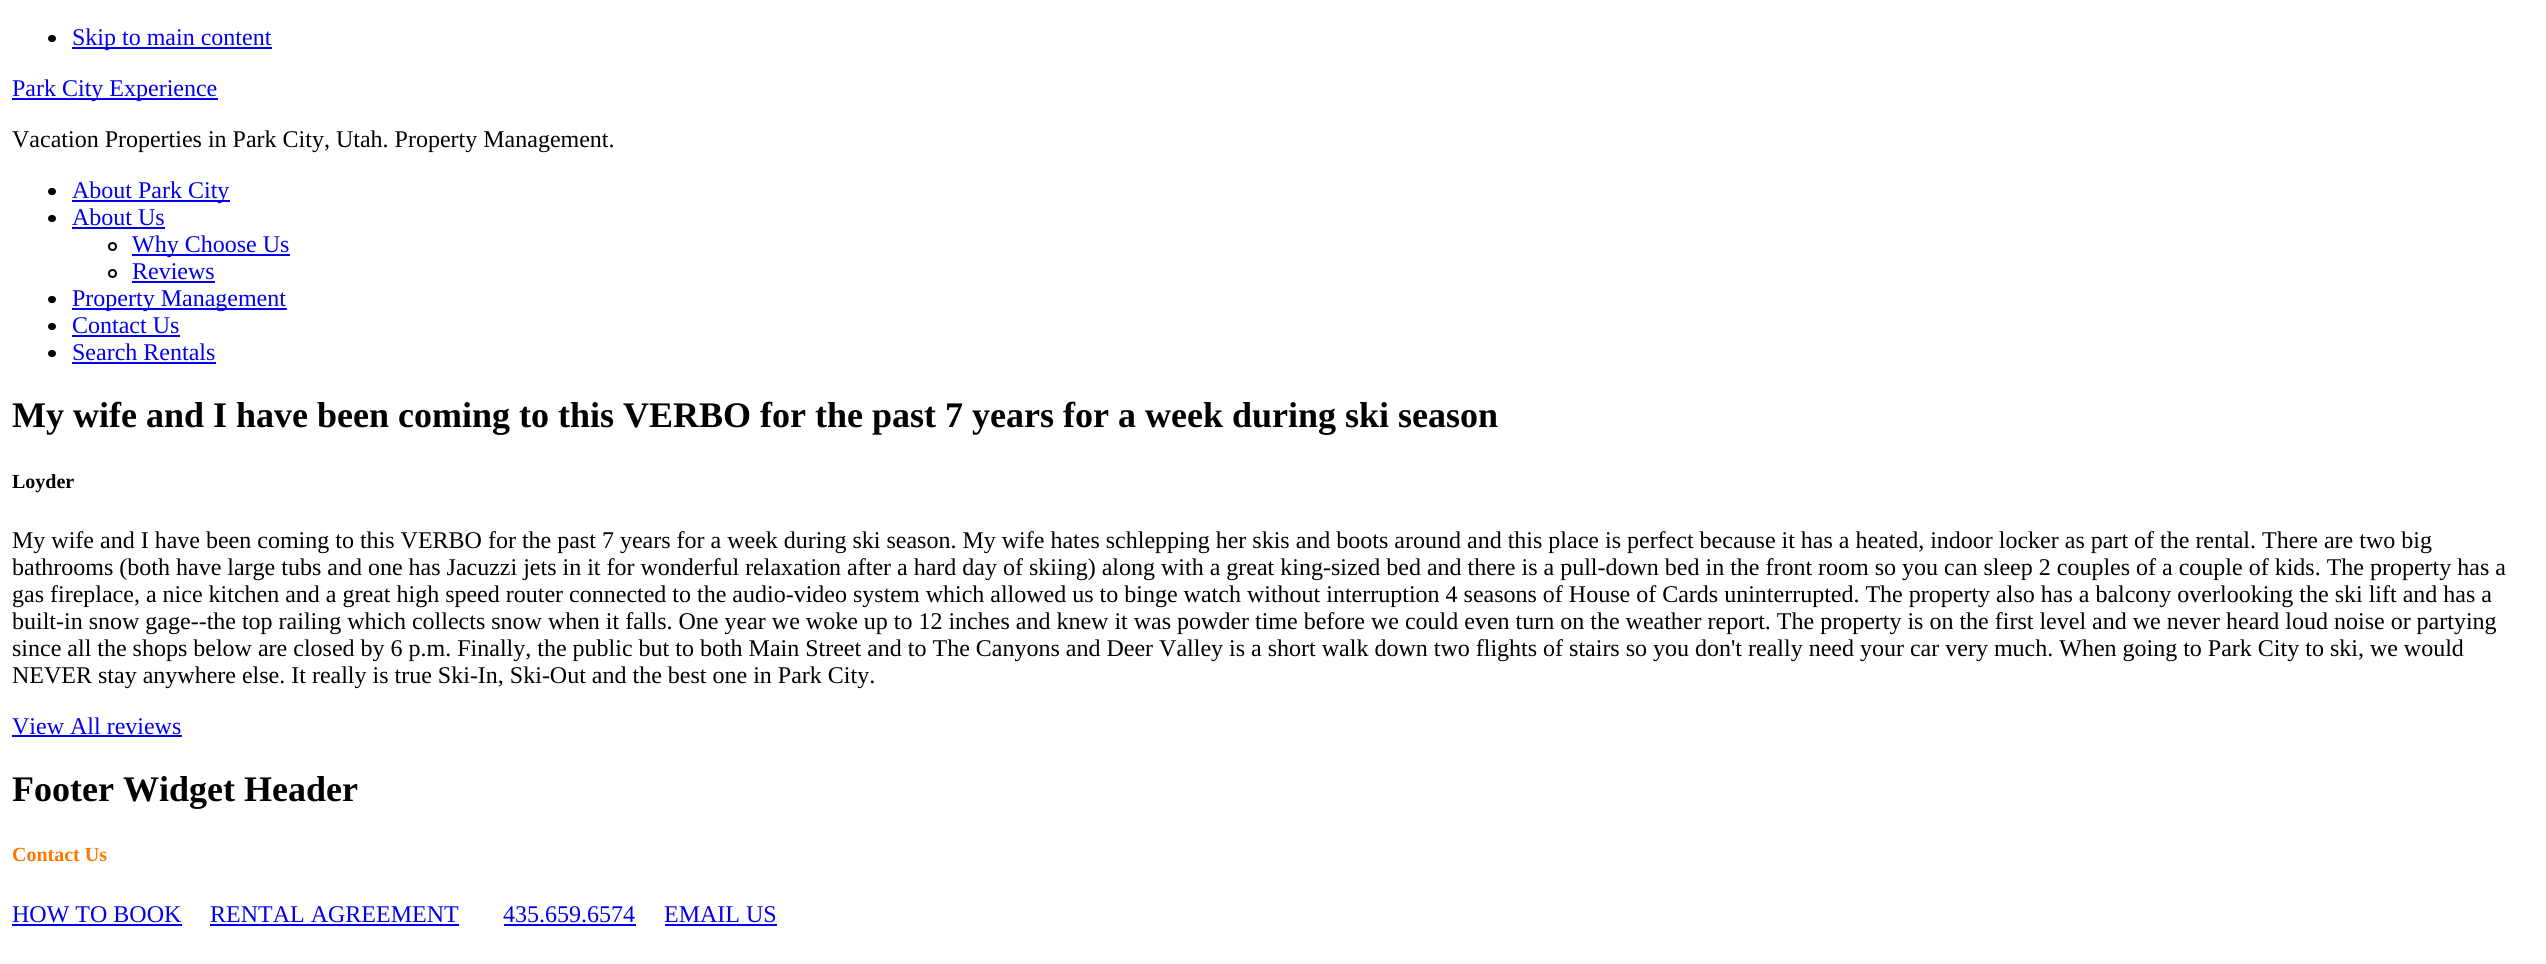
import math
import cairo


def use_color(cr, r, g, b):
  cr.set_source_rgb(r / 255, g / 255, b / 255)

def text(cr, x, y, s, family, size, color, bold=False, italic=False):
  cr.select_font_face(family, cairo.FONT_SLANT_ITALIC if italic else cairo.FONT_SLANT_NORMAL, cairo.FONT_WEIGHT_BOLD if bold else cairo.FONT_WEIGHT_NORMAL)
  cr.set_font_size(size)
  use_color(cr, *color)
  cr.move_to(x, y)
  cr.show_text(s)

def box(cr, x, y, w, h, *color):
  use_color(cr, *color)
  cr.rectangle(x, y, w, h)
  cr.fill()

def round_rect(cr, x, y, w, h, r):
  cr.new_sub_path()
  for i, (u, v) in enumerate([(x + w - r, y + h - r), (x + r, y + h - r), (x + r, y + r), (x + w - r, y + r)]):
    cr.arc(u, v, r, i * math.pi / 2, (i + 1) * math.pi / 2)
  cr.close_path()

def draw(cr):
  use_color(cr, 255, 255, 255)
  cr.paint()
  use_color(cr, 0, 0, 0)
  round_rect(cr, 48, 35, 8, 7, 3.5)
  cr.fill()
  box(cr, 72, 47, 200, 2, 0, 0, 238)
  box(cr, 12, 98, 206, 2, 0, 0, 238)
  use_color(cr, 0, 0, 0)
  round_rect(cr, 48, 188, 8, 7, 3.5)
  cr.fill()
  box(cr, 72, 200, 158, 2, 0, 0, 238)
  use_color(cr, 0, 0, 0)
  round_rect(cr, 48, 215, 8, 7, 3.5)
  cr.fill()
  box(cr, 72, 227, 93, 2, 0, 0, 238)
  cr.arc(112.5, 246.5, 3.5, 0, 2 * math.pi)
  use_color(cr, 0, 0, 0)
  cr.stroke()
  box(cr, 132, 254, 158, 2, 0, 0, 238)
  cr.arc(112.5, 273.5, 3.5, 0, 2 * math.pi)
  use_color(cr, 0, 0, 0)
  cr.stroke()
  box(cr, 132, 281, 83, 2, 0, 0, 238)
  use_color(cr, 0, 0, 0)
  round_rect(cr, 48, 296, 8, 7, 3.5)
  cr.fill()
  box(cr, 72, 308, 215, 2, 0, 0, 238)
  use_color(cr, 0, 0, 0)
  round_rect(cr, 48, 323, 8, 7, 3.5)
  cr.fill()
  box(cr, 72, 335, 108, 2, 0, 0, 238)
  use_color(cr, 0, 0, 0)
  round_rect(cr, 48, 350, 8, 7, 3.5)
  cr.fill()
  box(cr, 72, 362, 144, 2, 0, 0, 238)
  box(cr, 12, 735, 170, 2, 0, 0, 238)
  box(cr, 12, 924, 170, 2, 0, 0, 238)
  box(cr, 210, 924, 249, 2, 0, 0, 238)
  box(cr, 504, 924, 132, 2, 0, 0, 238)
  box(cr, 665, 924, 112, 2, 0, 0, 238)
  text(cr, 72, 45, "Skip to main content", "Liberation Serif", 24, (0, 0, 238))
  text(cr, 12, 96, "Park City Experience", "Liberation Serif", 24, (0, 0, 238))
  text(cr, 12, 147, "Vacation Properties in Park City, Utah. Property Management.", "Liberation Serif", 24, (0, 0, 0))
  text(cr, 72, 198, "About Park City", "Liberation Serif", 24, (0, 0, 238))
  text(cr, 72, 225, "About Us", "Liberation Serif", 24, (0, 0, 238))
  text(cr, 132, 252, "Why Choose Us", "Liberation Serif", 24, (0, 0, 238))
  text(cr, 132, 279, "Reviews", "Liberation Serif", 24, (0, 0, 238))
  text(cr, 72, 306, "Property Management", "Liberation Serif", 24, (0, 0, 238))
  text(cr, 72, 333, "Contact Us", "Liberation Serif", 24, (0, 0, 238))
  text(cr, 72, 360, "Search Rentals", "Liberation Serif", 24, (0, 0, 238))
  text(cr, 12, 427, "My wife and I have been coming to this VERBO for the past 7 years for a week during ski season", "Liberation Serif", 36, (0, 0, 0), bold=True)
  text(cr, 12, 488, "Loyder", "Liberation Serif", 20, (0, 0, 0), bold=True)
  text(cr, 12, 548, "My wife and I have been coming to this VERBO for the past 7 years for a week during ski season. My wife hates schlepping her skis and boots around and this place is perfect because it has a heated, indoor locker as part of the rental. There are two big", "Liberation Serif", 24, (0, 0, 0))
  text(cr, 12, 575, "bathrooms (both have large tubs and one has Jacuzzi jets in it for wonderful relaxation after a hard day of skiing) along with a great king-sized bed and there is a pull-down bed in the front room so you can sleep 2 couples of a couple of kids. The property has a", "Liberation Serif", 24, (0, 0, 0))
  text(cr, 12, 602, "gas fireplace, a nice kitchen and a great high speed router connected to the audio-video system which allowed us to binge watch without interruption 4 seasons of House of Cards uninterrupted. The property also has a balcony overlooking the ski lift and has a", "Liberation Serif", 24, (0, 0, 0))
  text(cr, 12, 629, "built-in snow gage--the top railing which collects snow when it falls. One year we woke up to 12 inches and knew it was powder time before we could even turn on the weather report. The property is on the first level and we never heard loud noise or partying", "Liberation Serif", 24, (0, 0, 0))
  text(cr, 12, 656, "since all the shops below are closed by 6 p.m. Finally, the public but to both Main Street and to The Canyons and Deer Valley is a short walk down two flights of stairs so you don't really need your car very much. When going to Park City to ski, we would", "Liberation Serif", 24, (0, 0, 0))
  text(cr, 12, 683, "NEVER stay anywhere else. It really is true Ski-In, Ski-Out and the best one in Park City.", "Liberation Serif", 24, (0, 0, 0))
  text(cr, 12, 734, "View All reviews", "Liberation Serif", 24, (0, 0, 238))
  text(cr, 12, 801, "Footer Widget Header", "Liberation Serif", 36, (0, 0, 0), bold=True)
  text(cr, 12, 861, "Contact Us", "Liberation Serif", 20, (252, 119, 1), bold=True)
  text(cr, 12, 922, "HOW TO BOOK", "Liberation Serif", 24, (0, 0, 238))
  text(cr, 210, 922, "RENTAL AGREEMENT", "Liberation Serif", 24, (0, 0, 238))
  text(cr, 503, 922, "435.659.6574", "Liberation Serif", 24, (0, 0, 238))
  text(cr, 664, 922, "EMAIL US", "Liberation Serif", 24, (0, 0, 238))


surface = cairo.ImageSurface(cairo.FORMAT_RGB24, 2546, 964)
cr = cairo.Context(surface)
options = cairo.FontOptions()
options.set_hint_metrics(cairo.HINT_METRICS_OFF)
options.set_hint_style(cairo.HINT_STYLE_NONE)
cr.set_font_options(options)
cr.set_miter_limit(4)
draw(cr)
surface.write_to_png("out.png")
